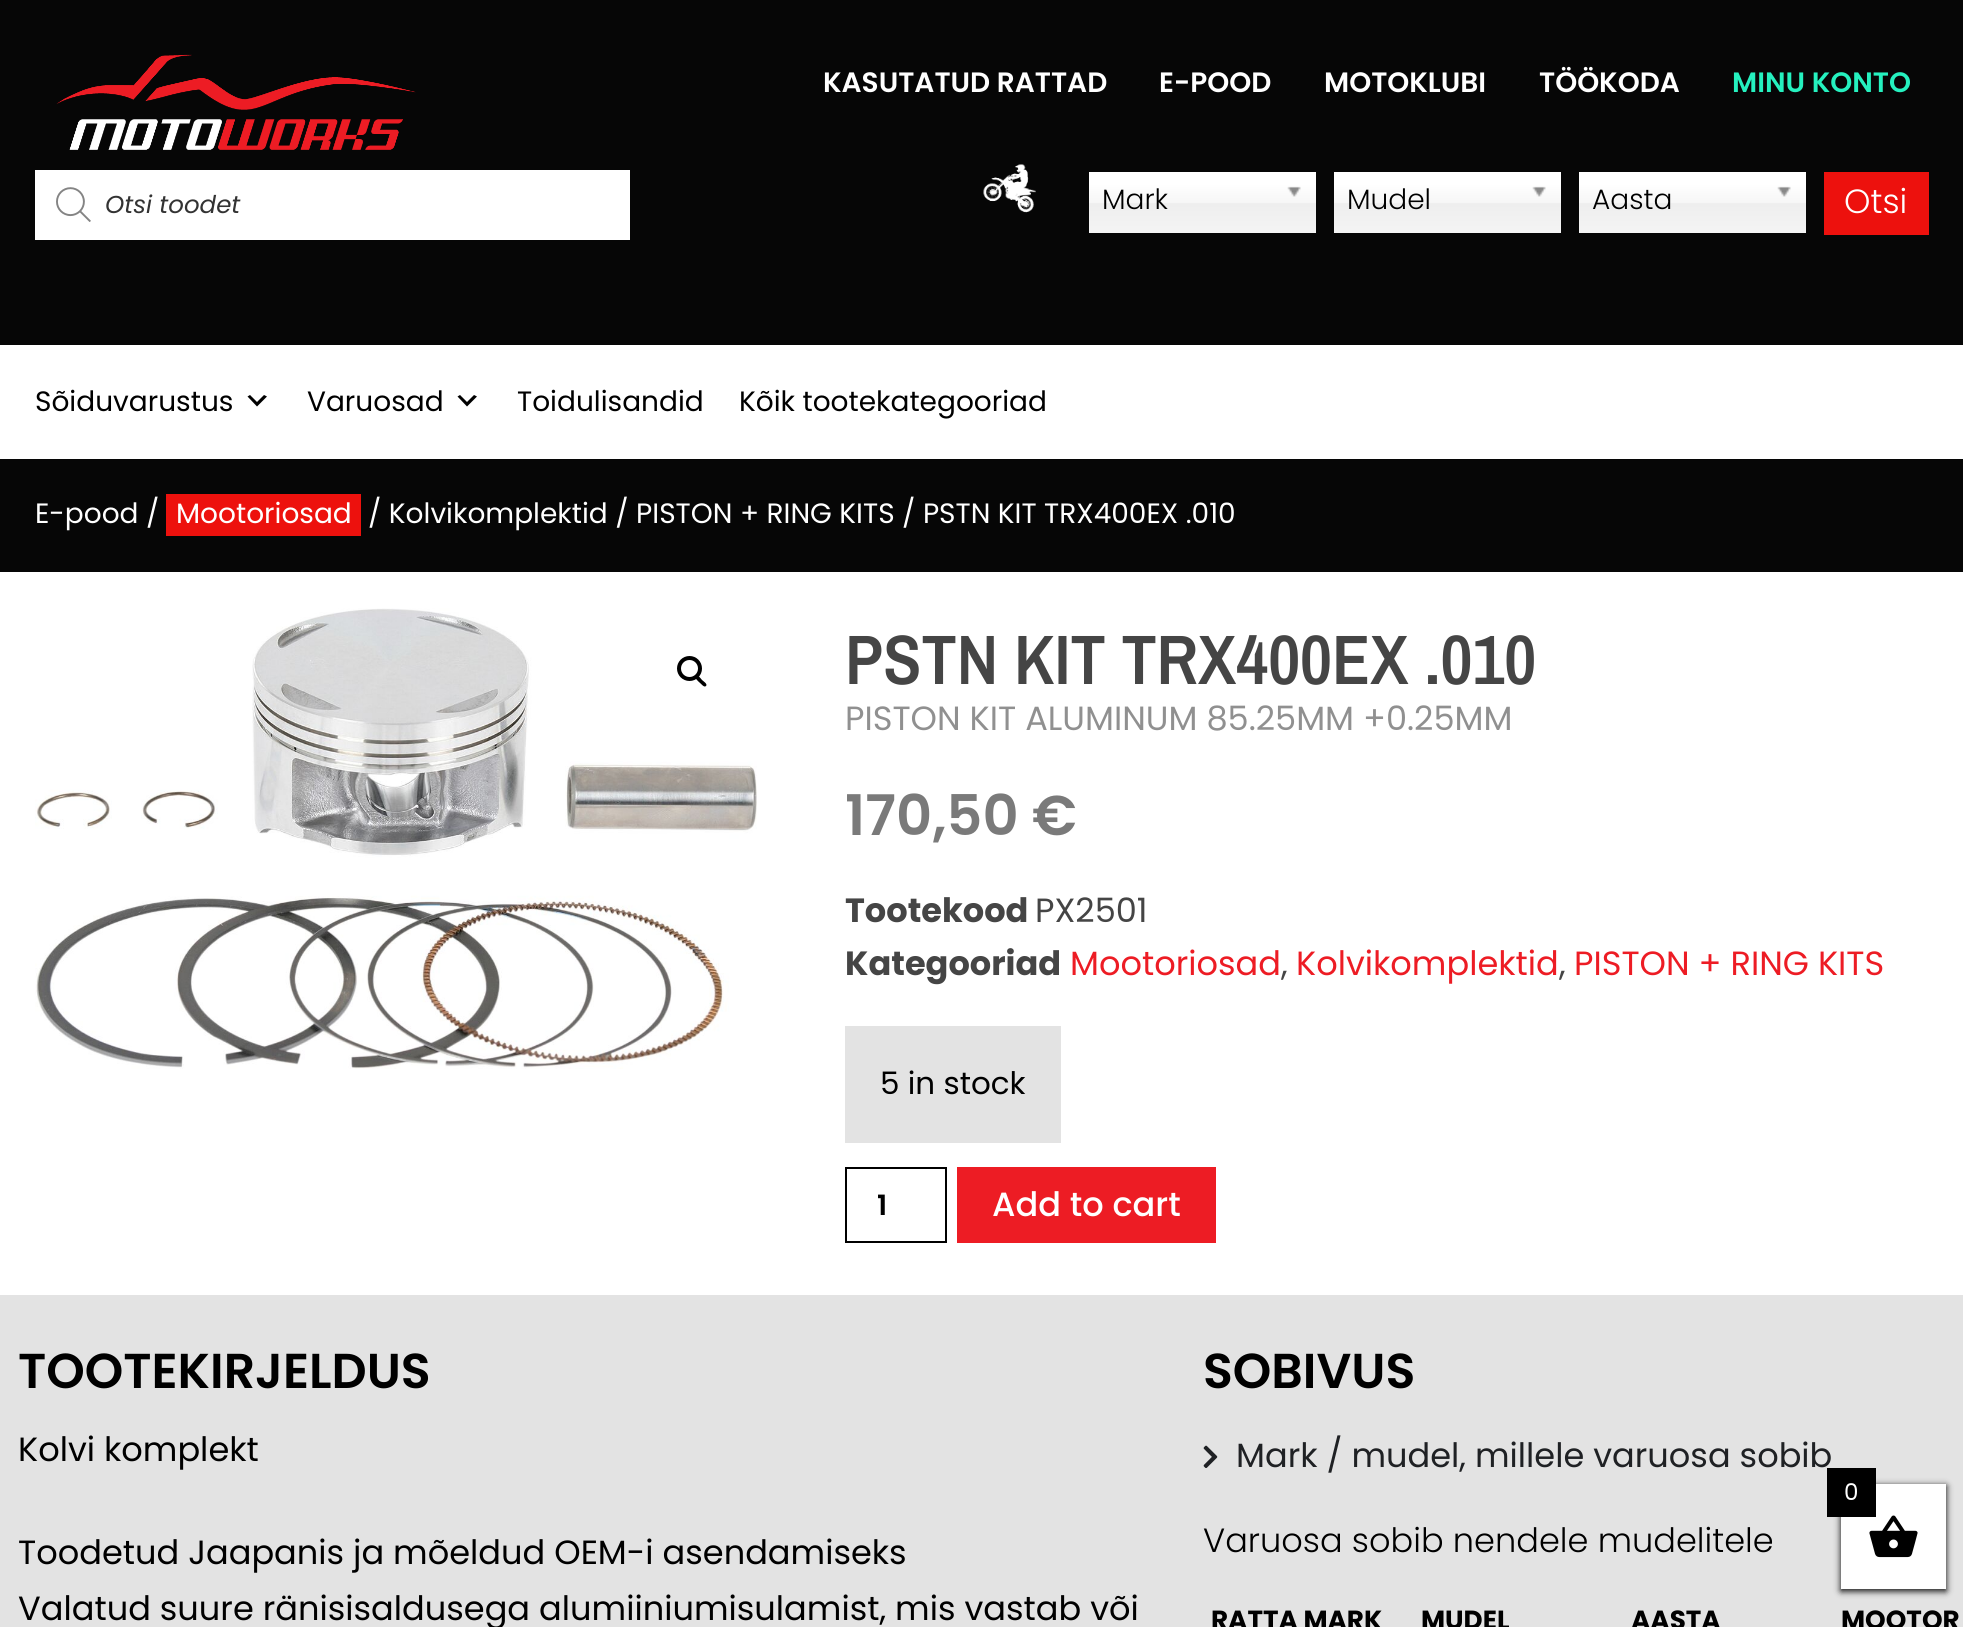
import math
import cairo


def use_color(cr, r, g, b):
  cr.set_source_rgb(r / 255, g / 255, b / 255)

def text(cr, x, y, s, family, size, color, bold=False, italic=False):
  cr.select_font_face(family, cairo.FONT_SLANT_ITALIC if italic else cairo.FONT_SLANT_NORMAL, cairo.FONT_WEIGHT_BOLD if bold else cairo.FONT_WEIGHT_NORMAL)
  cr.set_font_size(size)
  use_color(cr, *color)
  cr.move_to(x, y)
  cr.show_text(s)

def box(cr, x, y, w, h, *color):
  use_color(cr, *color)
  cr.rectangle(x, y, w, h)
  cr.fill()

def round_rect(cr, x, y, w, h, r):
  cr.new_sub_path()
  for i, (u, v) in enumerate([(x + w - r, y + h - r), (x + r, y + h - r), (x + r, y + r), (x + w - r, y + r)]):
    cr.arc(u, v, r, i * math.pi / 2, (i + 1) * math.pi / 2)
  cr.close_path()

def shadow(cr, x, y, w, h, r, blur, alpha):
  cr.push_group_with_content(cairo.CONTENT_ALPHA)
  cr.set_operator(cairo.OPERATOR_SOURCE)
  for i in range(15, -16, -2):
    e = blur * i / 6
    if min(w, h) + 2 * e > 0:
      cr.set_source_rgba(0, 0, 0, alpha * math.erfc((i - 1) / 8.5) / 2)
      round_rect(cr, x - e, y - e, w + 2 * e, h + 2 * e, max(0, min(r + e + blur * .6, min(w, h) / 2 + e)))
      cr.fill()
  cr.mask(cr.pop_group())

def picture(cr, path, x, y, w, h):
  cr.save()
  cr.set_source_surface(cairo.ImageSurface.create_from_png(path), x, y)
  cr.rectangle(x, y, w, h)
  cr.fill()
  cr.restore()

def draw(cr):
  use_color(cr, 6, 6, 6)
  cr.paint()
  picture(cr, "img_01.png", 56, 54, 360, 96)
  box(cr, 35, 170, 595, 70, 255, 255, 255)
  picture(cr, "img_02.png", 56, 187, 35, 35)
  picture(cr, "img_03.png", 983, 164, 53, 49)
  gradient = cairo.LinearGradient(1202, 172, 1202, 233)
  gradient.add_color_stop_rgba(0.2, 1, 1, 1, 1)
  gradient.add_color_stop_rgba(0.5, 0.965, 0.965, 0.965, 1)
  gradient.add_color_stop_rgba(0.52, 0.933, 0.933, 0.933, 1)
  gradient.add_color_stop_rgba(1, 0.957, 0.957, 0.957, 1)
  cr.set_source(gradient)
  cr.rectangle(1089, 172, 227, 61)
  cr.fill()
  picture(cr, "img_04.png", 1287, 186, 14, 11)
  gradient = cairo.LinearGradient(1447, 172, 1447, 233)
  gradient.add_color_stop_rgba(0.2, 1, 1, 1, 1)
  gradient.add_color_stop_rgba(0.5, 0.965, 0.965, 0.965, 1)
  gradient.add_color_stop_rgba(0.52, 0.933, 0.933, 0.933, 1)
  gradient.add_color_stop_rgba(1, 0.957, 0.957, 0.957, 1)
  cr.set_source(gradient)
  cr.rectangle(1334, 172, 227, 61)
  cr.fill()
  picture(cr, "img_05.png", 1532, 186, 14, 11)
  gradient = cairo.LinearGradient(1692, 172, 1692, 233)
  gradient.add_color_stop_rgba(0.2, 1, 1, 1, 1)
  gradient.add_color_stop_rgba(0.5, 0.965, 0.965, 0.965, 1)
  gradient.add_color_stop_rgba(0.52, 0.933, 0.933, 0.933, 1)
  gradient.add_color_stop_rgba(1, 0.957, 0.957, 0.957, 1)
  cr.set_source(gradient)
  cr.rectangle(1579, 172, 227, 61)
  cr.fill()
  picture(cr, "img_05.png", 1777, 186, 14, 11)
  box(cr, 1824, 172, 105, 63, 237, 17, 13)
  box(cr, 0, 345, 1963, 114, 255, 255, 255)
  use_color(cr, 0, 0, 0)
  cr.new_path()
  cr.move_to(250, 395)
  cr.line_to(257, 402)
  cr.line_to(264, 395)
  cr.line_to(267, 396.5)
  cr.line_to(257, 406.5)
  cr.line_to(247.5, 396.5)
  cr.close_path()
  cr.fill()
  cr.new_path()
  cr.move_to(460, 395)
  cr.line_to(467, 402)
  cr.line_to(474, 395)
  cr.line_to(477, 396.5)
  cr.line_to(467, 406.5)
  cr.line_to(457.5, 396.5)
  cr.close_path()
  cr.fill()
  box(cr, 166, 494, 195, 42, 237, 17, 13)
  box(cr, 0, 572, 1963, 723, 255, 255, 255)
  picture(cr, "img_06.png", 35, 608, 722, 461)
  cr.arc(689.5, 668.5, 10.5, 0, 2 * math.pi)
  use_color(cr, 0, 0, 0)
  cr.set_line_width(4)
  cr.stroke()
  cr.new_path()
  cr.move_to(696, 676)
  cr.curve_to(698, 674, 701, 679, 702, 680)
  cr.curve_to(703, 681, 708, 684, 706, 686)
  cr.curve_to(704, 688, 701, 683.5, 699.5, 682.5)
  cr.curve_to(698.5, 681.5, 694, 678, 696, 676)
  cr.close_path()
  cr.fill()
  box(cr, 845, 1026, 216, 117, 227, 227, 227)
  cr.rectangle(846, 1168, 100, 74)
  use_color(cr, 0, 0, 0)
  cr.set_line_width(2)
  cr.stroke()
  box(cr, 957, 1167, 259, 76, 237, 28, 36)
  box(cr, 0, 1295, 1963, 332, 227, 227, 227)
  picture(cr, "img_07.png", 1203, 1445, 15, 23)
  use_color(cr, 0, 0, 0)
  shadow(cr, 1841, 1486, 105, 105, 0, 3.5, 1)
  box(cr, 1841, 1484, 105, 105, 255, 255, 255)
  picture(cr, "img_08.png", 1869, 1515, 49, 43)
  text(cr, 105, 213, "Otsi toodet", "Poppins", 24.5, (51, 51, 51), italic=True)
  text(cr, 823, 92, "KASUTATUD RATTAD", "Poppins SemiBold", 28, (255, 255, 255))
  text(cr, 1159, 92, "E-POOD", "Poppins SemiBold", 28, (255, 255, 255))
  text(cr, 1324, 92, "MOTOKLUBI", "Poppins SemiBold", 28, (255, 255, 255))
  text(cr, 1539, 92, "TÖÖKODA", "Poppins SemiBold", 28, (255, 255, 255))
  text(cr, 1732, 92, "MINU KONTO", "Poppins SemiBold", 28, (37, 241, 191))
  text(cr, 1102, 209, "Mark", "Poppins Light", 28, (0, 0, 0))
  text(cr, 1347, 209, "Mudel", "Poppins Light", 28, (0, 0, 0))
  text(cr, 1592, 209, "Aasta", "Poppins Light", 28, (0, 0, 0))
  text(cr, 1844, 213, "Otsi", "Poppins Light", 33.6, (255, 255, 255))
  text(cr, 35, 411, "Sõiduvarustus", "Poppins", 28, (0, 0, 0))
  text(cr, 307, 411, "Varuosad", "Poppins", 28, (0, 0, 0))
  text(cr, 517, 411, "Toidulisandid", "Poppins", 28, (0, 0, 0))
  text(cr, 739, 411, "Kõik tootekategooriad", "Poppins", 28, (0, 0, 0))
  text(cr, 35, 523, "E-pood /", "Poppins", 28, (255, 255, 255))
  text(cr, 176, 523, "Mootoriosad", "Poppins", 28, (255, 255, 255))
  text(cr, 368, 523, "/ Kolvikomplektid / PISTON + RING KITS / PSTN KIT TRX400EX .010", "Poppins", 28, (255, 255, 255))
  text(cr, 845, 684, "PSTN KIT TRX400EX .010", "Archivo Narrow SemiBold", 70, (69, 69, 69))
  text(cr, 845, 730, "PISTON KIT ALUMINUM 85.25MM +0.25MM", "Poppins", 33.6, (144, 144, 144))
  text(cr, 845, 835, "170,50 €", "Poppins SemiBold", 56, (122, 122, 122))
  text(cr, 845, 922, "Tootekood", "Poppins", 33.6, (69, 69, 69), bold=True)
  text(cr, 1035, 922, "PX2501", "Poppins", 33.6, (69, 69, 69))
  text(cr, 845, 975, "Kategooriad", "Poppins", 33.6, (69, 69, 69), bold=True)
  text(cr, 1070, 975, "Mootoriosad", "Poppins", 33.6, (237, 28, 36))
  text(cr, 1281, 975, ",", "Poppins", 33.6, (69, 69, 69))
  text(cr, 1296, 975, "Kolvikomplektid", "Poppins", 33.6, (237, 28, 36))
  text(cr, 1559, 975, ",", "Poppins", 33.6, (69, 69, 69))
  text(cr, 1574, 975, "PISTON + RING KITS", "Poppins", 33.6, (237, 28, 36))
  text(cr, 880, 1094, "5 in stock", "Poppins", 31, (0, 0, 0))
  text(cr, 877, 1215, "1", "Poppins SemiBold", 28, (0, 0, 0))
  text(cr, 992, 1216, "Add to cart", "Poppins Medium", 33.6, (255, 255, 255))
  text(cr, 18, 1388, "TOOTEKIRJELDUS", "Poppins SemiBold", 49, (0, 0, 0))
  text(cr, 18, 1461, "Kolvi komplekt", "Poppins", 33.6, (0, 0, 0))
  text(cr, 18, 1564, "Toodetud Jaapanis ja mõeldud OEM-i asendamiseks", "Poppins", 33.6, (0, 0, 0))
  text(cr, 18, 1620, "Valatud suure ränisisaldusega alumiiniumisulamist, mis vastab või", "Poppins", 33.6, (0, 0, 0))
  text(cr, 1203, 1388, "SOBIVUS", "Poppins SemiBold", 49, (0, 0, 0))
  text(cr, 1236, 1467, "Mark / mudel, millele varuosa sobib", "Poppins", 33.6, (31, 33, 36))
  text(cr, 1203, 1552, "Varuosa sobib nendele mudelitele", "Poppins Light", 33.6, (0, 0, 0))
  text(cr, 1211, 1629, "RATTA MARK", "Poppins", 26.25, (0, 0, 0), bold=True)
  text(cr, 1421, 1629, "MUDEL", "Poppins", 26.25, (0, 0, 0), bold=True)
  text(cr, 1631, 1629, "AASTA", "Poppins", 26.25, (0, 0, 0), bold=True)
  text(cr, 1841, 1629, "MOOTOR", "Poppins", 26.25, (0, 0, 0), bold=True)
  box(cr, 1827, 1468, 49, 49, 0, 0, 0)
  text(cr, 1844, 1500, "0", "Poppins", 23, (255, 255, 255))


surface = cairo.ImageSurface(cairo.FORMAT_RGB24, 1963, 1627)
cr = cairo.Context(surface)
options = cairo.FontOptions()
options.set_hint_metrics(cairo.HINT_METRICS_OFF)
options.set_hint_style(cairo.HINT_STYLE_NONE)
cr.set_font_options(options)
cr.set_miter_limit(4)
draw(cr)
surface.write_to_png("out.png")
